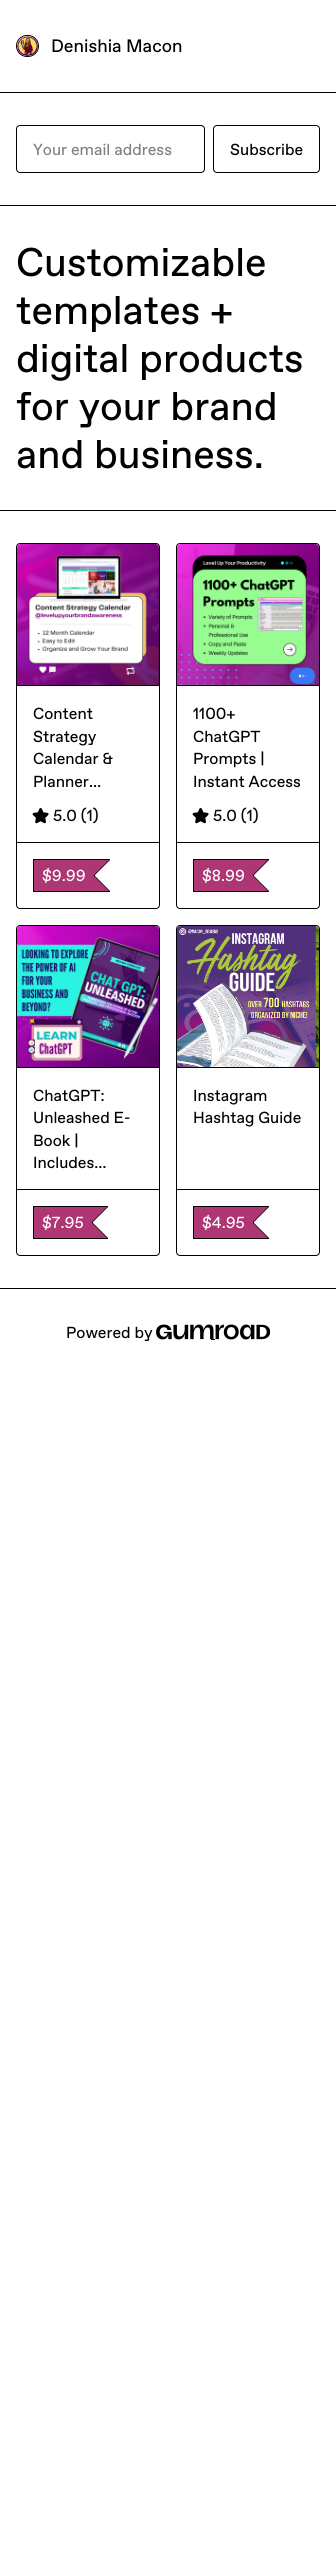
import math
import cairo


def use_color(cr, r, g, b):
  cr.set_source_rgb(r / 255, g / 255, b / 255)

def text(cr, x, y, s, family, size, color, bold=False, italic=False):
  cr.select_font_face(family, cairo.FONT_SLANT_ITALIC if italic else cairo.FONT_SLANT_NORMAL, cairo.FONT_WEIGHT_BOLD if bold else cairo.FONT_WEIGHT_NORMAL)
  cr.set_font_size(size)
  use_color(cr, *color)
  cr.move_to(x, y)
  cr.show_text(s)

def box(cr, x, y, w, h, *color):
  use_color(cr, *color)
  cr.rectangle(x, y, w, h)
  cr.fill()

def round_rect(cr, x, y, w, h, r):
  cr.new_sub_path()
  for i, (u, v) in enumerate([(x + w - r, y + h - r), (x + r, y + h - r), (x + r, y + r), (x + w - r, y + r)]):
    cr.arc(u, v, r, i * math.pi / 2, (i + 1) * math.pi / 2)
  cr.close_path()

def picture(cr, path, x, y, w, h):
  cr.save()
  cr.set_source_surface(cairo.ImageSurface.create_from_png(path), x, y)
  cr.rectangle(x, y, w, h)
  cr.fill()
  cr.restore()

def draw(cr):
  use_color(cr, 255, 255, 255)
  cr.paint()
  box(cr, 0, 92, 336, 1, 0, 0, 0)
  round_rect(cr, 16.5, 35.5, 22, 21, 10.5)
  cr.set_line_width(1)
  cr.stroke()
  picture(cr, "img_01.png", 17, 36, 21, 20)
  box(cr, 0, 205, 336, 1, 0, 0, 0)
  round_rect(cr, 16.5, 125.5, 188, 47, 3.5)
  cr.stroke()
  round_rect(cr, 213.5, 125.5, 106, 47, 3.5)
  cr.stroke()
  box(cr, 0, 510, 336, 1, 0, 0, 0)
  box(cr, 0, 1288, 336, 1, 0, 0, 0)
  round_rect(cr, 16.5, 543.5, 143, 365, 3.5)
  cr.stroke()
  box(cr, 17, 685, 142, 1, 0, 0, 0)
  picture(cr, "img_02.png", 17, 544, 142, 141)
  box(cr, 17, 842, 142, 1, 0, 0, 0)
  picture(cr, "img_03.png", 32, 808, 17, 16)
  box(cr, 33, 859, 77, 1, 0, 0, 0)
  box(cr, 33, 891, 77, 1, 0, 0, 0)
  box(cr, 33, 859, 1, 33, 0, 0, 0)
  box(cr, 34, 860, 60, 31, 174, 54, 116)
  use_color(cr, 0, 0, 0)
  cr.new_path()
  cr.move_to(94, 860)
  cr.line_to(110, 860)
  cr.line_to(95, 875)
  cr.close_path()
  cr.move_to(110, 891)
  cr.line_to(94, 891)
  cr.line_to(95, 876)
  cr.close_path()
  cr.fill()
  box(cr, 94, 874, 1, 3, 0, 0, 0)
  use_color(cr, 174, 54, 116)
  cr.new_path()
  cr.move_to(93, 860)
  cr.line_to(109, 860)
  cr.line_to(94, 875)
  cr.close_path()
  cr.move_to(109, 891)
  cr.line_to(93, 891)
  cr.line_to(94, 876)
  cr.close_path()
  cr.fill()
  round_rect(cr, 176.5, 543.5, 143, 365, 3.5)
  use_color(cr, 0, 0, 0)
  cr.stroke()
  box(cr, 177, 685, 142, 1, 0, 0, 0)
  picture(cr, "img_04.png", 177, 544, 142, 141)
  box(cr, 177, 842, 142, 1, 0, 0, 0)
  picture(cr, "img_03.png", 192, 808, 17, 16)
  box(cr, 193, 859, 76, 1, 0, 0, 0)
  box(cr, 193, 891, 76, 1, 0, 0, 0)
  box(cr, 193, 859, 1, 33, 0, 0, 0)
  box(cr, 194, 860, 59, 31, 174, 54, 116)
  use_color(cr, 0, 0, 0)
  cr.new_path()
  cr.move_to(253, 860)
  cr.line_to(269, 860)
  cr.line_to(254, 875)
  cr.close_path()
  cr.move_to(269, 891)
  cr.line_to(253, 891)
  cr.line_to(254, 876)
  cr.close_path()
  cr.fill()
  box(cr, 253, 874, 1, 3, 0, 0, 0)
  use_color(cr, 174, 54, 116)
  cr.new_path()
  cr.move_to(252, 860)
  cr.line_to(268, 860)
  cr.line_to(253, 875)
  cr.close_path()
  cr.move_to(268, 891)
  cr.line_to(252, 891)
  cr.line_to(253, 876)
  cr.close_path()
  cr.fill()
  round_rect(cr, 16.5, 925.5, 143, 330, 3.5)
  use_color(cr, 0, 0, 0)
  cr.stroke()
  box(cr, 17, 1067, 142, 1, 0, 0, 0)
  picture(cr, "img_05.png", 17, 926, 142, 141)
  box(cr, 17, 1189, 142, 1, 0, 0, 0)
  box(cr, 33, 1206, 75, 1, 0, 0, 0)
  box(cr, 33, 1238, 75, 1, 0, 0, 0)
  box(cr, 33, 1206, 1, 33, 0, 0, 0)
  box(cr, 34, 1207, 58, 31, 174, 54, 116)
  use_color(cr, 0, 0, 0)
  cr.new_path()
  cr.move_to(92, 1207)
  cr.line_to(108, 1207)
  cr.line_to(93, 1222)
  cr.close_path()
  cr.move_to(108, 1238)
  cr.line_to(92, 1238)
  cr.line_to(93, 1223)
  cr.close_path()
  cr.fill()
  box(cr, 92, 1221, 1, 3, 0, 0, 0)
  use_color(cr, 174, 54, 116)
  cr.new_path()
  cr.move_to(91, 1207)
  cr.line_to(107, 1207)
  cr.line_to(92, 1222)
  cr.close_path()
  cr.move_to(107, 1238)
  cr.line_to(91, 1238)
  cr.line_to(92, 1223)
  cr.close_path()
  cr.fill()
  round_rect(cr, 176.5, 925.5, 143, 330, 3.5)
  use_color(cr, 0, 0, 0)
  cr.stroke()
  box(cr, 177, 1067, 142, 1, 0, 0, 0)
  picture(cr, "img_06.png", 177, 926, 142, 141)
  box(cr, 177, 1189, 142, 1, 0, 0, 0)
  box(cr, 193, 1206, 76, 1, 0, 0, 0)
  box(cr, 193, 1238, 76, 1, 0, 0, 0)
  box(cr, 193, 1206, 1, 33, 0, 0, 0)
  box(cr, 194, 1207, 59, 31, 174, 54, 116)
  use_color(cr, 0, 0, 0)
  cr.new_path()
  cr.move_to(253, 1207)
  cr.line_to(269, 1207)
  cr.line_to(254, 1222)
  cr.close_path()
  cr.move_to(269, 1238)
  cr.line_to(253, 1238)
  cr.line_to(254, 1223)
  cr.close_path()
  cr.fill()
  box(cr, 253, 1221, 1, 3, 0, 0, 0)
  use_color(cr, 174, 54, 116)
  cr.new_path()
  cr.move_to(252, 1207)
  cr.line_to(268, 1207)
  cr.line_to(253, 1222)
  cr.close_path()
  cr.move_to(268, 1238)
  cr.line_to(252, 1238)
  cr.line_to(253, 1223)
  cr.close_path()
  cr.fill()
  picture(cr, "img_07.png", 156, 1324, 114, 16)
  box(cr, 211, 1339, 4, 1, 0, 0, 0)
  text(cr, 51, 52, "Denishia Macon", "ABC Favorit", 18, (0, 0, 0))
  text(cr, 33, 155, "Your email address", "ABC Favorit", 16, (128, 128, 128))
  text(cr, 230, 155, "Subscribe", "ABC Favorit", 16, (0, 0, 0))
  text(cr, 16, 276, "Customizable", "ABC Favorit", 40, (0, 0, 0))
  text(cr, 16, 324, "templates +", "ABC Favorit", 40, (0, 0, 0))
  text(cr, 16, 372, "digital products", "ABC Favorit", 40, (0, 0, 0))
  text(cr, 16, 420, "for your brand", "ABC Favorit", 40, (0, 0, 0))
  text(cr, 16, 468, "and business.", "ABC Favorit", 40, (0, 0, 0))
  text(cr, 33, 719, "Content", "ABC Favorit", 16, (0, 0, 0))
  text(cr, 33, 742, "Strategy", "ABC Favorit", 16, (0, 0, 0))
  text(cr, 33, 764, "Calendar &", "ABC Favorit", 16, (0, 0, 0))
  text(cr, 33, 787, "Planner…", "ABC Favorit", 16, (0, 0, 0))
  text(cr, 53, 821, "5.0 (1)", "ABC Favorit", 16, (0, 0, 0))
  text(cr, 42, 881, "$9.99", "ABC Favorit", 16, (255, 255, 255))
  text(cr, 193, 719, "1100+", "ABC Favorit", 16, (0, 0, 0))
  text(cr, 193, 742, "ChatGPT", "ABC Favorit", 16, (0, 0, 0))
  text(cr, 193, 764, "Prompts |", "ABC Favorit", 16, (0, 0, 0))
  text(cr, 193, 787, "Instant Access", "ABC Favorit", 16, (0, 0, 0))
  text(cr, 213, 821, "5.0 (1)", "ABC Favorit", 16, (0, 0, 0))
  text(cr, 202, 881, "$8.99", "ABC Favorit", 16, (255, 255, 255))
  text(cr, 33, 1101, "ChatGPT:", "ABC Favorit", 16, (0, 0, 0))
  text(cr, 33, 1123, "Unleashed E-", "ABC Favorit", 16, (0, 0, 0))
  text(cr, 33, 1146, "Book |", "ABC Favorit", 16, (0, 0, 0))
  text(cr, 33, 1168, "Includes…", "ABC Favorit", 16, (0, 0, 0))
  text(cr, 42, 1228, "$7.95", "ABC Favorit", 16, (255, 255, 255))
  text(cr, 193, 1101, "Instagram", "ABC Favorit", 16, (0, 0, 0))
  text(cr, 193, 1123, "Hashtag Guide", "ABC Favorit", 16, (0, 0, 0))
  text(cr, 202, 1228, "$4.95", "ABC Favorit", 16, (255, 255, 255))
  text(cr, 66, 1338, "Powered by", "ABC Favorit", 16, (0, 0, 0))


surface = cairo.ImageSurface(cairo.FORMAT_RGB24, 336, 2549)
cr = cairo.Context(surface)
options = cairo.FontOptions()
options.set_hint_metrics(cairo.HINT_METRICS_OFF)
options.set_hint_style(cairo.HINT_STYLE_NONE)
cr.set_font_options(options)
cr.set_miter_limit(4)
draw(cr)
surface.write_to_png("out.png")
